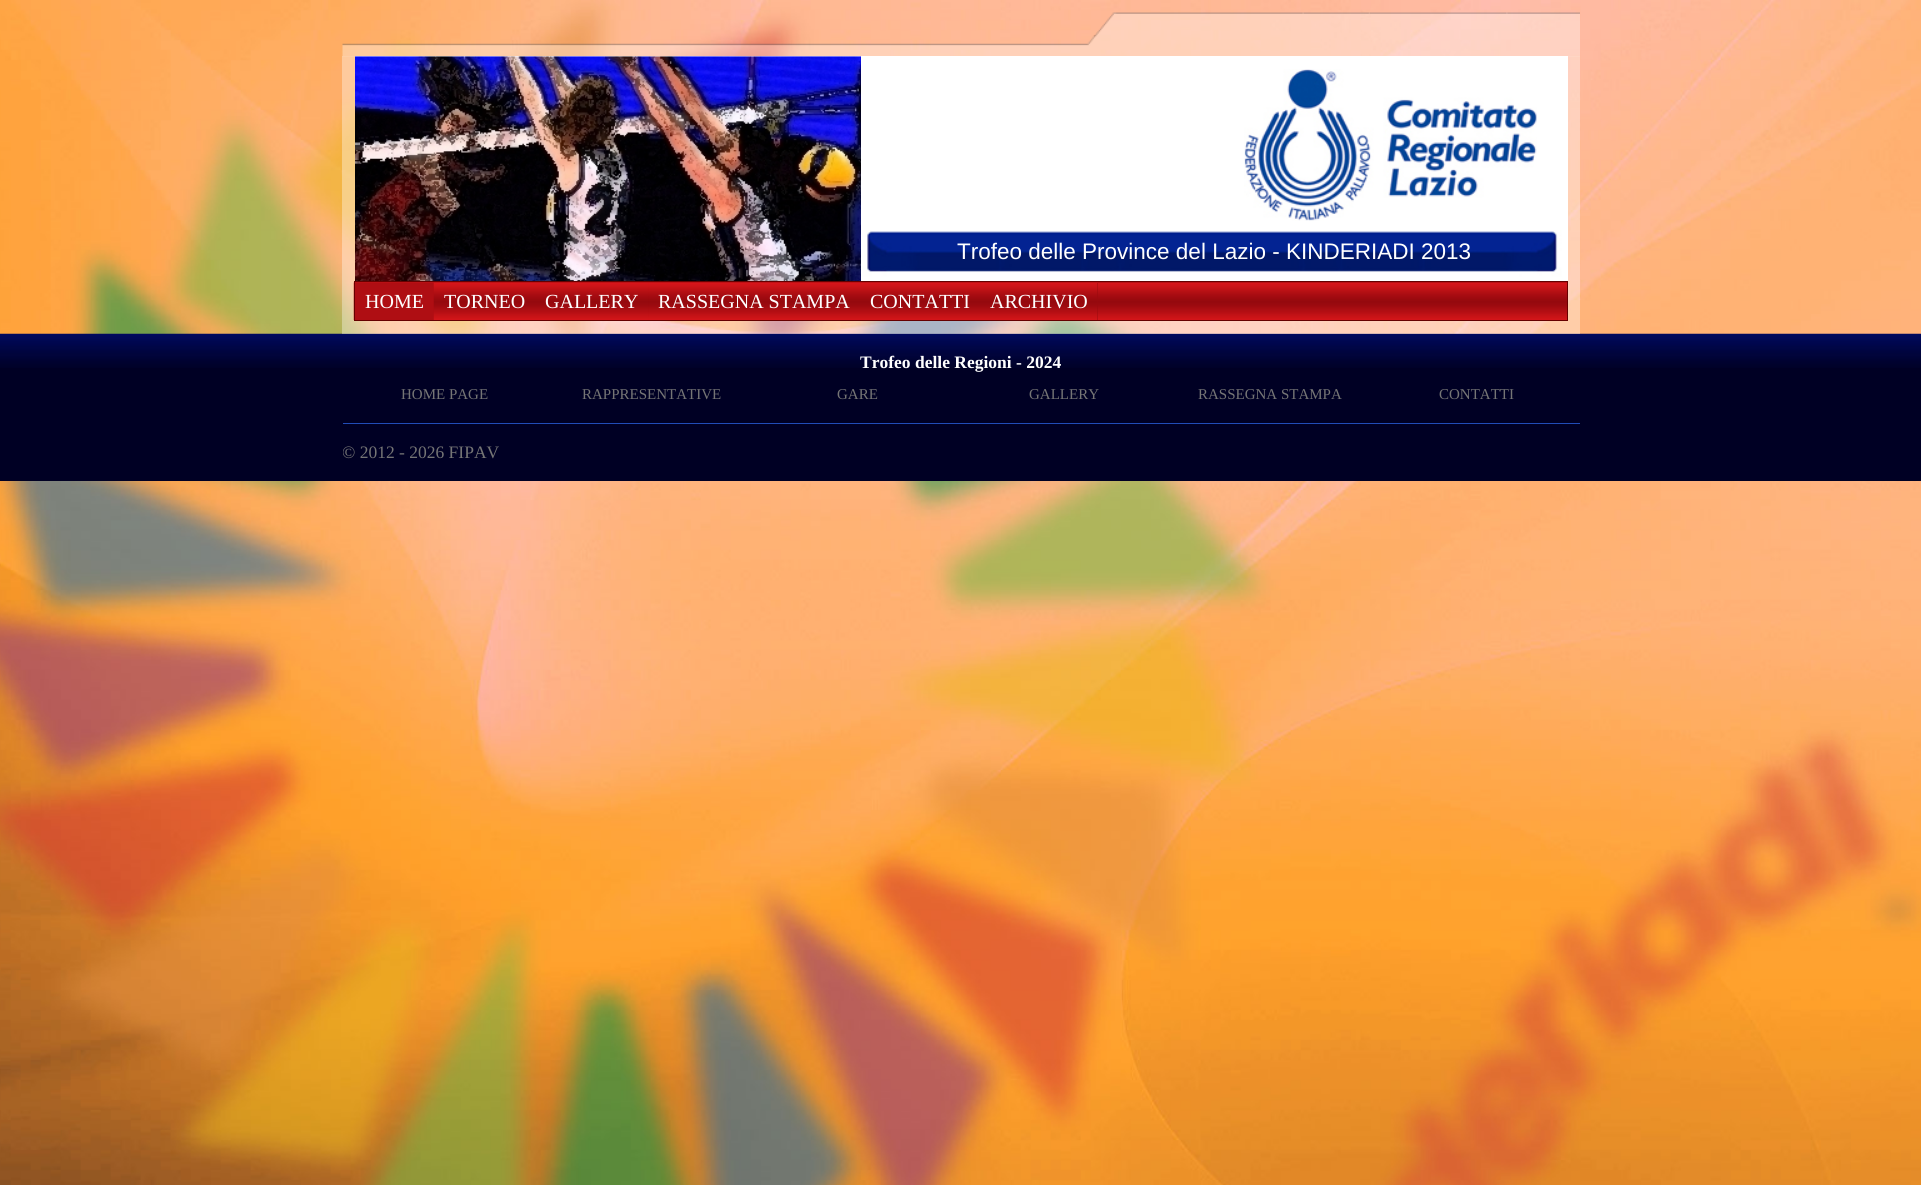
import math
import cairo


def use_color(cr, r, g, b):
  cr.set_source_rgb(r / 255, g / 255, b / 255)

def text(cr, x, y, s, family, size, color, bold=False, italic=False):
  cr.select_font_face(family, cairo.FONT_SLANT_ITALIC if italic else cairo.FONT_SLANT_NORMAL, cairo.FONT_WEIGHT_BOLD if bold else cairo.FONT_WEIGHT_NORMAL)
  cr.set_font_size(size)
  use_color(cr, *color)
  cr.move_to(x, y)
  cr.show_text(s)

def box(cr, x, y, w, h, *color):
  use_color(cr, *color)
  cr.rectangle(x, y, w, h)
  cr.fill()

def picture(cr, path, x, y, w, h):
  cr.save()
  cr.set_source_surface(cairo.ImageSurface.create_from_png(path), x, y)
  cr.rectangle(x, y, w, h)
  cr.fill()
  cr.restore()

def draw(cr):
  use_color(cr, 255, 255, 255)
  cr.paint()
  picture(cr, "img_01.png", 0, 0, 1921, 1185)
  picture(cr, "img_02.png", 342, 12, 1238, 45)
  picture(cr, "img_12.png", 0, 333, 1921, 35)
  cr.set_source_rgba(1, 1, 1, 0.35)
  cr.rectangle(342, 56, 1238, 278)
  cr.fill()
  box(cr, 355, 56, 1213, 170, 255, 255, 255)
  picture(cr, "img_03.png", 355, 56, 506, 225)
  picture(cr, "img_04.png", 1244, 69, 293, 152)
  box(cr, 861, 226, 707, 55, 255, 255, 255)
  picture(cr, "img_05.png", 861, 230, 705, 51)
  box(cr, 355, 282, 1212, 1, 152, 10, 15)
  picture(cr, "img_06.png", 353, 282, 1214, 38)
  cr.rectangle(354.5, 281.5, 1213, 39)
  use_color(cr, 102, 0, 0)
  cr.set_line_width(1)
  cr.stroke()
  box(cr, 355, 283, 79, 37, 175, 14, 19)
  picture(cr, "img_07.png", 433, 282, 102, 38)
  picture(cr, "img_08.png", 535, 282, 114, 38)
  picture(cr, "img_09.png", 648, 282, 212, 38)
  picture(cr, "img_10.png", 860, 282, 120, 38)
  box(cr, 1097, 283, 1, 37, 152, 10, 15)
  picture(cr, "img_11.png", 980, 282, 118, 38)
  box(cr, 0, 368, 1921, 113, 0, 0, 36)
  box(cr, 343, 423, 1237, 1, 33, 76, 184)
  text(cr, 957, 259, "Trofeo delle Province del Lazio - KINDERIADI 2013", "Liberation Sans", 22.5, (255, 255, 255))
  text(cr, 365, 308, "HOME", "Liberation Serif", 20, (255, 255, 255))
  text(cr, 444, 308, "TORNEO", "Liberation Serif", 20, (255, 255, 255))
  text(cr, 545, 308, "GALLERY", "Liberation Serif", 20, (255, 255, 255))
  text(cr, 658, 308, "RASSEGNA STAMPA", "Liberation Serif", 20, (255, 255, 255))
  text(cr, 870, 308, "CONTATTI", "Liberation Serif", 20, (255, 255, 255))
  text(cr, 990, 308, "ARCHIVIO", "Liberation Serif", 20, (255, 255, 255))
  text(cr, 860, 368, "Trofeo delle Regioni - 2024", "Liberation Serif", 17.5, (255, 255, 255), bold=True)
  text(cr, 401, 399, "HOME PAGE", "Liberation Serif", 15, (117, 117, 117))
  text(cr, 582, 399, "RAPPRESENTATIVE", "Liberation Serif", 15, (117, 117, 117))
  text(cr, 837, 399, "GARE", "Liberation Serif", 15, (117, 117, 117))
  text(cr, 1029, 399, "GALLERY", "Liberation Serif", 15, (117, 117, 117))
  text(cr, 1198, 399, "RASSEGNA STAMPA", "Liberation Serif", 15, (117, 117, 117))
  text(cr, 1439, 399, "CONTATTI", "Liberation Serif", 15, (117, 117, 117))
  cr.save()
  cr.rectangle(343, 443, 1237, 20)
  cr.clip()
  text(cr, 342, 458, "© 2012 - 2026 FIPAV", "Liberation Serif", 17.5, (117, 117, 117))
  cr.restore()


surface = cairo.ImageSurface(cairo.FORMAT_RGB24, 1921, 1185)
cr = cairo.Context(surface)
options = cairo.FontOptions()
options.set_hint_metrics(cairo.HINT_METRICS_OFF)
options.set_hint_style(cairo.HINT_STYLE_NONE)
cr.set_font_options(options)
cr.set_miter_limit(4)
draw(cr)
surface.write_to_png("out.png")
